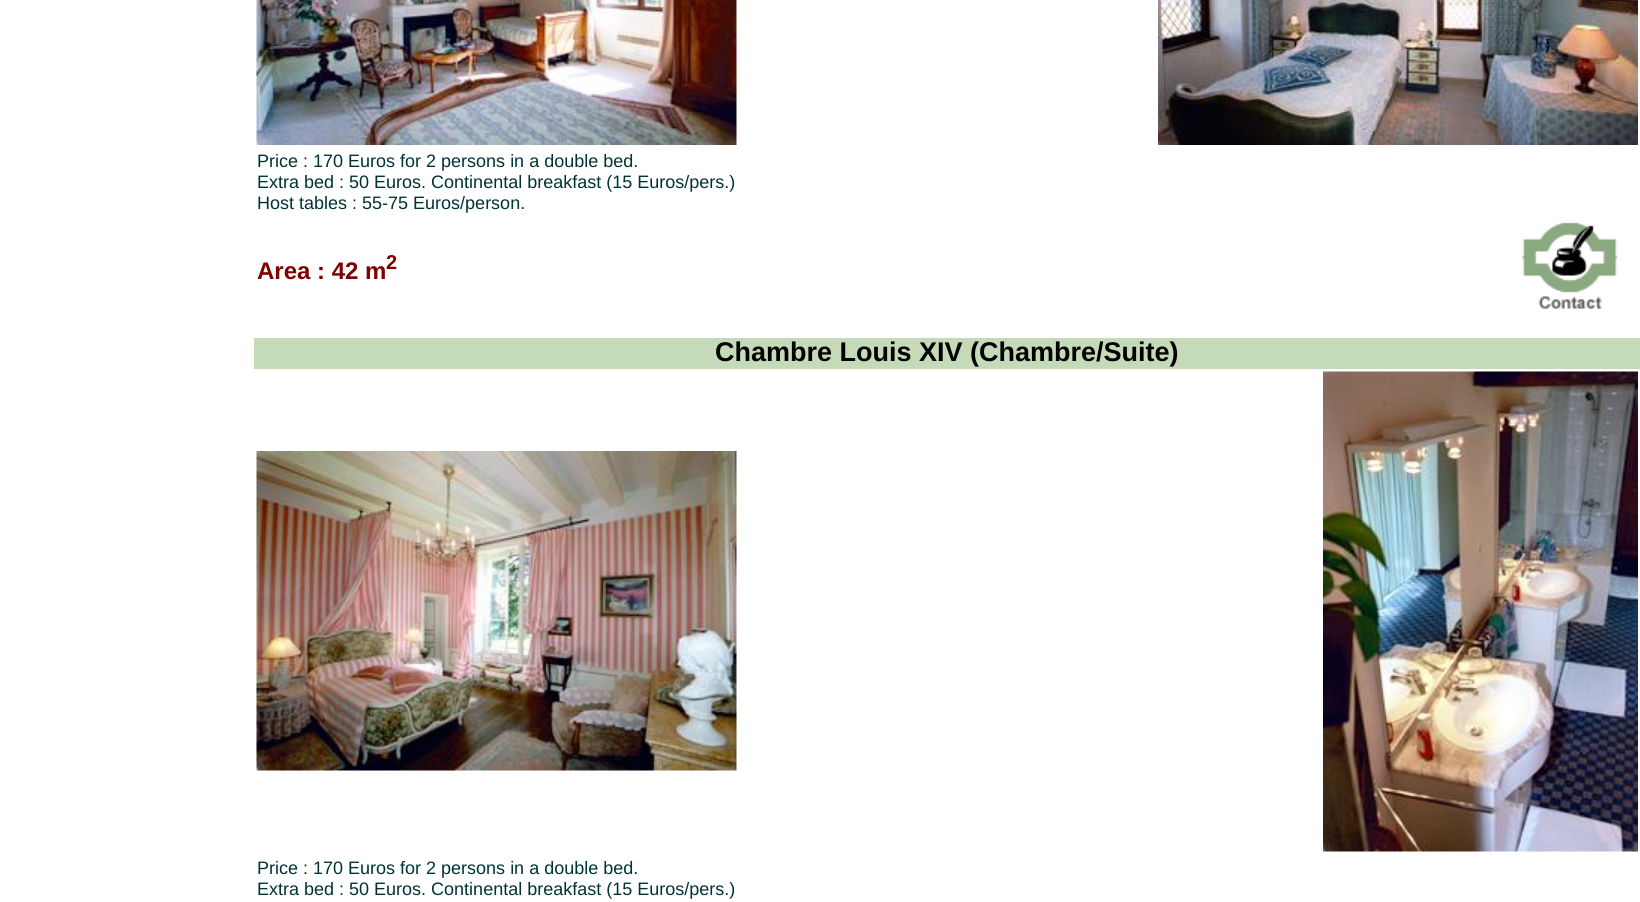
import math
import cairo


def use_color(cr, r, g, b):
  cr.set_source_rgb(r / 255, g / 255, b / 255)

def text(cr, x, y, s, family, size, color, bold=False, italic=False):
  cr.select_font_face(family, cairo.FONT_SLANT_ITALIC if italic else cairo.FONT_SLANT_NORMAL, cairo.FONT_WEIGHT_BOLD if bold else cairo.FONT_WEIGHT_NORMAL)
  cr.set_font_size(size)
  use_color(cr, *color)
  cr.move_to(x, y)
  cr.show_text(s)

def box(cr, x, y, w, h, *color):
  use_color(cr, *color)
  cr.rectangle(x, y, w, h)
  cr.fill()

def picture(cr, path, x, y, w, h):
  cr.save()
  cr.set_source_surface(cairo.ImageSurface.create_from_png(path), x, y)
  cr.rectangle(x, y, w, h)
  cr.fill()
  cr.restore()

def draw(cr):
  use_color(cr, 255, 255, 255)
  cr.paint()
  picture(cr, "img_01.png", 256, 0, 481, 145)
  picture(cr, "img_02.png", 1158, 0, 480, 145)
  picture(cr, "img_03.png", 1522, 222, 96, 87)
  box(cr, 254, 338, 1386, 31, 197, 218, 184)
  picture(cr, "img_04.png", 256, 451, 481, 320)
  picture(cr, "img_05.png", 1323, 371, 315, 481)
  text(cr, 257, 167, "Price : 170 Euros for 2 persons in a double bed.", "Liberation Sans", 18, (0, 51, 51))
  text(cr, 257, 188, "Extra bed : 50 Euros. Continental breakfast (15 Euros/pers.)", "Liberation Sans", 18, (0, 51, 51))
  text(cr, 257, 209, "Host tables : 55-75 Euros/person.", "Liberation Sans", 18, (0, 51, 51))
  text(cr, 257, 279, "Area : 42 m", "Liberation Sans", 24, (128, 0, 0), bold=True)
  text(cr, 386, 269, "2", "Liberation Sans", 20, (128, 0, 0), bold=True)
  text(cr, 715, 361, "Chambre Louis XIV (Chambre/Suite)", "Liberation Sans", 27, (0, 0, 0), bold=True)
  text(cr, 257, 874, "Price : 170 Euros for 2 persons in a double bed.", "Liberation Sans", 18, (0, 51, 51))
  text(cr, 257, 895, "Extra bed : 50 Euros. Continental breakfast (15 Euros/pers.)", "Liberation Sans", 18, (0, 51, 51))


surface = cairo.ImageSurface(cairo.FORMAT_RGB24, 1640, 902)
cr = cairo.Context(surface)
options = cairo.FontOptions()
options.set_hint_metrics(cairo.HINT_METRICS_OFF)
options.set_hint_style(cairo.HINT_STYLE_NONE)
cr.set_font_options(options)
cr.set_miter_limit(4)
draw(cr)
surface.write_to_png("out.png")
